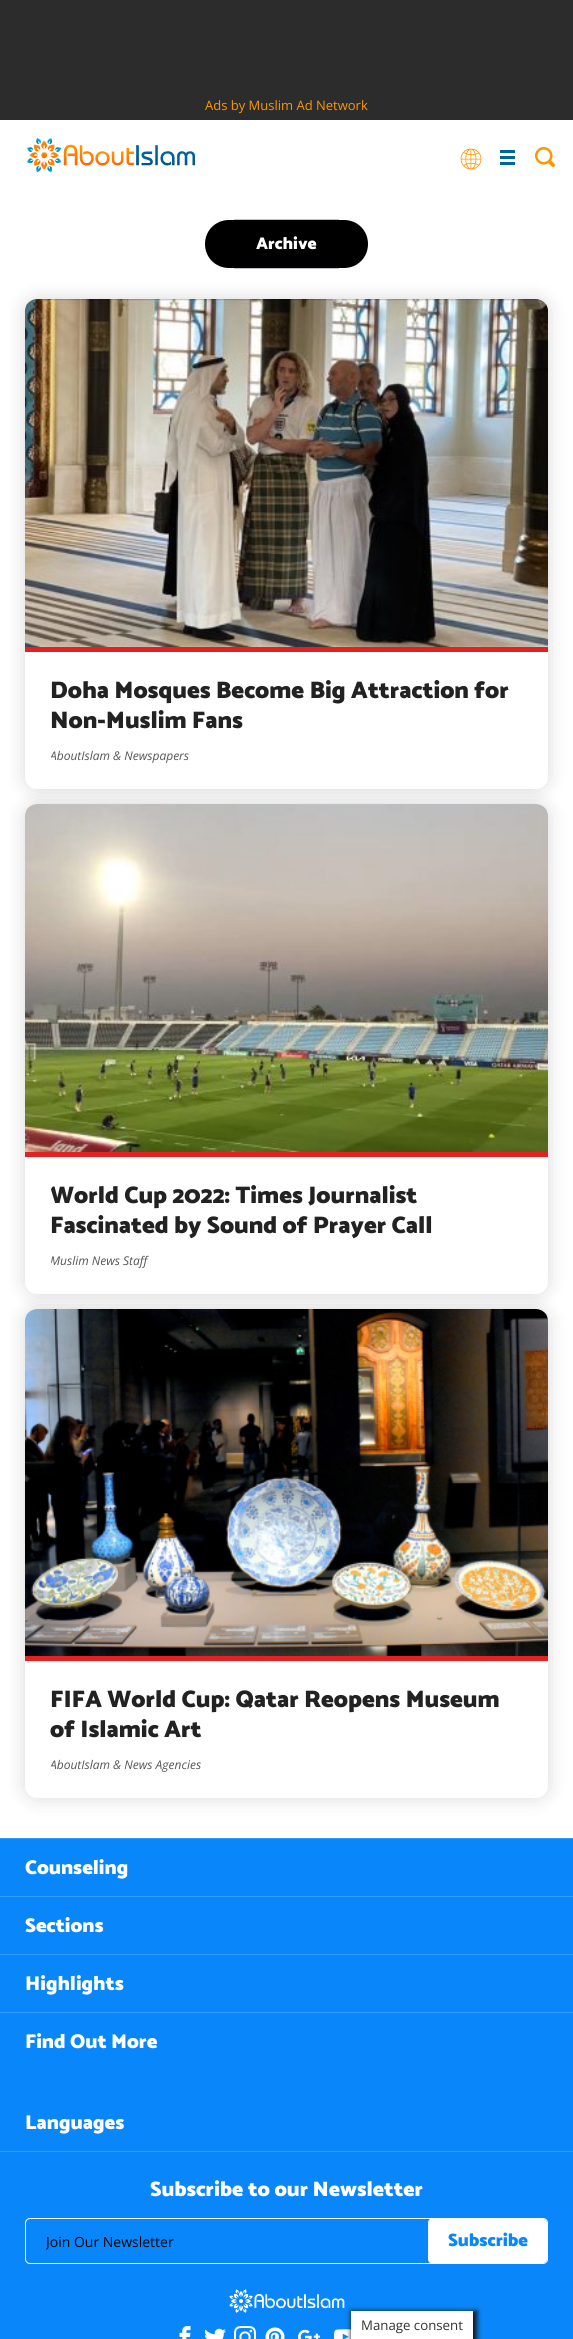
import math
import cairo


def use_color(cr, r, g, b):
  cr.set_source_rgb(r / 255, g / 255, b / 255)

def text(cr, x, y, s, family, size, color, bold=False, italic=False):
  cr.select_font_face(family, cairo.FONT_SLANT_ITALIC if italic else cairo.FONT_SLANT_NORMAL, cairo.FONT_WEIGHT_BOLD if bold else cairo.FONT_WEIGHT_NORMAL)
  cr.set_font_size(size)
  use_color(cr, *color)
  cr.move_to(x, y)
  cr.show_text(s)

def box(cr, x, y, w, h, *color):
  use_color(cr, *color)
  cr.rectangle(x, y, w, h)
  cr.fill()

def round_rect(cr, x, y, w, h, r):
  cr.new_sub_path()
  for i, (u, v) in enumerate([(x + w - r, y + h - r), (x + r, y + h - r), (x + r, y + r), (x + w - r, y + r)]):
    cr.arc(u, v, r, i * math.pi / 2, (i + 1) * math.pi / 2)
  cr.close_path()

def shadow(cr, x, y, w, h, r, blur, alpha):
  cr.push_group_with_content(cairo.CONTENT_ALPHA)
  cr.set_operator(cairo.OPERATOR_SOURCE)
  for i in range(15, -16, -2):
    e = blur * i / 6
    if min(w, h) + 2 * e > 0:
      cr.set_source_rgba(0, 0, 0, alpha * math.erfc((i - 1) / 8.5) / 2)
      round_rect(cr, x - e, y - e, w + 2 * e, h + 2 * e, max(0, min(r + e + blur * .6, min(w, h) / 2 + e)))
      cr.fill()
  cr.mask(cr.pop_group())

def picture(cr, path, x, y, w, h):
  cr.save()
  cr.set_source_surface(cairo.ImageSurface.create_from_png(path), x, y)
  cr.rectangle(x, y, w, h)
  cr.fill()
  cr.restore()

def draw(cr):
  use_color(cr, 255, 255, 255)
  cr.paint()
  box(cr, 0, 0, 573, 120, 44, 44, 44)
  picture(cr, "img_01.png", 27, 138, 168, 35)
  picture(cr, "img_02.png", 460, 148, 22, 22)
  box(cr, 500, 156, 15, 3, 0, 102, 153)
  box(cr, 500, 150, 15, 3, 0, 102, 153)
  box(cr, 500, 162, 15, 3, 0, 102, 153)
  picture(cr, "img_03.png", 535, 147, 20, 20)
  box(cr, 253, 220, 67, 48, 0, 0, 0)
  box(cr, 234, 219, 105, 1, 190, 193, 197)
  use_color(cr, 0, 0, 0)
  shadow(cr, 25, 299, 523, 490, 12, 10, 0.15)
  box(cr, 234, 268, 105, 1, 190, 193, 197)
  use_color(cr, 0, 0, 0)
  cr.new_path()
  cr.move_to(229, 220)
  cr.line_to(253, 220)
  cr.line_to(253, 268)
  cr.line_to(229, 268)
  cr.curve_to(215.5, 268, 205, 257.5, 205, 244)
  cr.curve_to(205, 230.5, 215.5, 220, 229, 220)
  cr.close_path()
  cr.fill()
  cr.new_path()
  cr.move_to(320, 220)
  cr.line_to(344, 220)
  cr.curve_to(357.5, 220, 368, 230.5, 368, 244)
  cr.curve_to(368, 257.5, 357.5, 268, 344, 268)
  cr.line_to(320, 268)
  cr.close_path()
  cr.fill()
  use_color(cr, 255, 255, 255)
  round_rect(cr, 25, 299, 523, 490, 12)
  cr.fill()
  picture(cr, "img_04.png", 25, 299, 523, 348)
  box(cr, 25, 647, 523, 5, 228, 33, 33)
  use_color(cr, 0, 0, 0)
  shadow(cr, 25, 804, 523, 490, 12, 10, 0.15)
  use_color(cr, 255, 255, 255)
  round_rect(cr, 25, 804, 523, 490, 12)
  cr.fill()
  picture(cr, "img_05.png", 25, 804, 523, 348)
  box(cr, 25, 1152, 523, 5, 228, 33, 33)
  use_color(cr, 0, 0, 0)
  shadow(cr, 25, 1309, 523, 489, 12, 10, 0.15)
  use_color(cr, 255, 255, 255)
  round_rect(cr, 25, 1309, 523, 489, 12)
  cr.fill()
  picture(cr, "img_06.png", 25, 1309, 523, 347)
  box(cr, 25, 1656, 523, 5, 228, 33, 33)
  box(cr, 0, 1839, 573, 500, 9, 135, 250)
  box(cr, 0, 1838, 573, 1, 51, 155, 251)
  box(cr, 0, 1896, 573, 1, 51, 155, 251)
  box(cr, 0, 1954, 573, 1, 51, 155, 251)
  box(cr, 0, 2012, 573, 1, 51, 155, 251)
  box(cr, 0, 2151, 573, 1, 51, 155, 251)
  round_rect(cr, 25.5, 2218.5, 522, 45, 4.5)
  use_color(cr, 255, 255, 255)
  cr.set_line_width(1)
  cr.stroke()
  cr.save()
  round_rect(cr, 26, 2219, 521, 44, 4)
  cr.clip()
  round_rect(cr, 428, 2218, 120, 46, 5)
  cr.fill()
  cr.restore()
  picture(cr, "img_07.png", 229, 2289, 116, 24)
  picture(cr, "img_08.png", 179, 2326, 12, 13)
  picture(cr, "img_09.png", 204, 2328, 22, 11)
  picture(cr, "img_10.png", 234, 2326, 22, 13)
  picture(cr, "img_11.png", 265, 2327, 20, 12)
  picture(cr, "img_12.png", 298, 2329, 22, 10)
  picture(cr, "img_13.png", 334, 2329, 17, 10)
  use_color(cr, 22, 22, 22)
  shadow(cr, 351, 2311, 126, 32, 0, 2.5, 1)
  box(cr, 351, 2311, 122, 28, 255, 255, 255)
  text(cr, 205, 110, "Ads by Muslim Ad Network", "Open Sans", 13, (254, 150, 1))
  text(cr, 256, 249, "Archive", "Catamaran Black", 17, (255, 255, 255))
  text(cr, 50, 698, "Doha Mosques Become Big Attraction for", "Catamaran Black", 24, (34, 34, 34))
  text(cr, 50, 728, "Non-Muslim Fans", "Catamaran Black", 24, (34, 34, 34))
  cr.save()
  round_rect(cr, 50, 677, 473, 87, 12)
  cr.clip()
  text(cr, 50, 760, "AboutIslam & Newspapers", "Open Sans", 12, (85, 85, 85), italic=True)
  cr.restore()
  cr.save()
  round_rect(cr, 50, 1182, 473, 87, 12)
  cr.clip()
  text(cr, 50, 1203, "World Cup 2022: Times Journalist", "Catamaran Black", 24, (34, 34, 34))
  cr.restore()
  text(cr, 50, 1233, "Fascinated by Sound of Prayer Call", "Catamaran Black", 24, (34, 34, 34))
  cr.save()
  round_rect(cr, 50, 1182, 473, 87, 12)
  cr.clip()
  text(cr, 50, 1265, "Muslim News Staff", "Open Sans", 12, (85, 85, 85), italic=True)
  cr.restore()
  text(cr, 50, 1707, "FIFA World Cup: Qatar Reopens Museum", "Catamaran Black", 24, (34, 34, 34))
  text(cr, 50, 1737, "of Islamic Art", "Catamaran Black", 24, (34, 34, 34))
  cr.save()
  round_rect(cr, 50, 1686, 473, 87, 12)
  cr.clip()
  text(cr, 50, 1769, "AboutIslam & News Agencies", "Open Sans", 12, (85, 85, 85), italic=True)
  cr.restore()
  text(cr, 25, 1874, "Counseling", "Catamaran Black", 20, (255, 255, 255))
  text(cr, 25, 1932, "Sections", "Catamaran Black", 20, (255, 255, 255))
  text(cr, 25, 1990, "Highlights", "Catamaran Black", 20, (255, 255, 255))
  text(cr, 25, 2048, "Find Out More", "Catamaran Black", 20, (255, 255, 255))
  text(cr, 25, 2129, "Languages", "Catamaran Black", 20, (255, 255, 255))
  text(cr, 150, 2196, "Subscribe to our Newsletter", "Catamaran Black", 21, (255, 255, 255))
  cr.save()
  cr.rectangle(46, 2232, 381, 19)
  cr.clip()
  text(cr, 46, 2247, "Join Our Newsletter", "Open Sans", 14, (0, 0, 0))
  cr.restore()
  text(cr, 448, 2246, "Subscribe", "Catamaran Black", 18, (9, 135, 250))
  text(cr, 361, 2330, "Manage consent", "Open Sans", 13.25, (51, 51, 51))


surface = cairo.ImageSurface(cairo.FORMAT_RGB24, 573, 2339)
cr = cairo.Context(surface)
options = cairo.FontOptions()
options.set_hint_metrics(cairo.HINT_METRICS_OFF)
options.set_hint_style(cairo.HINT_STYLE_NONE)
cr.set_font_options(options)
cr.set_miter_limit(4)
draw(cr)
surface.write_to_png("out.png")
